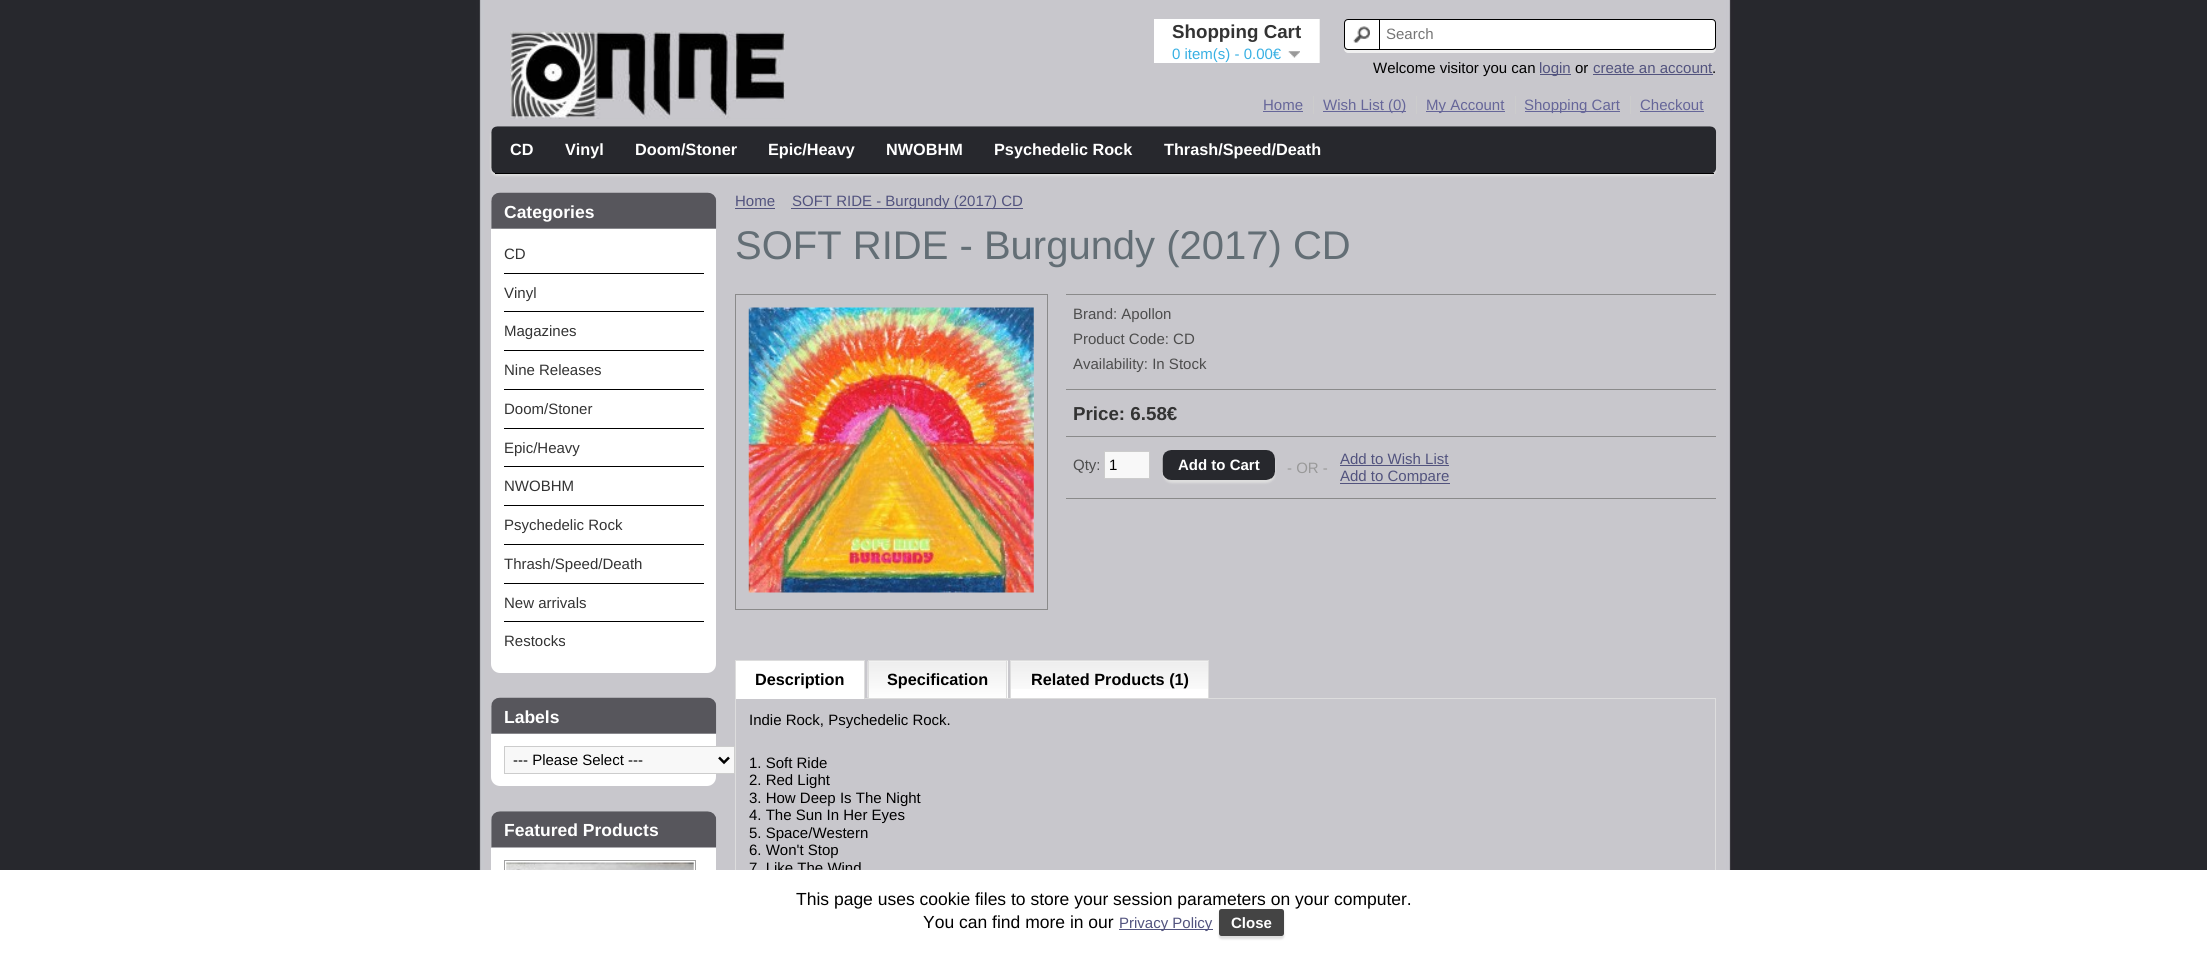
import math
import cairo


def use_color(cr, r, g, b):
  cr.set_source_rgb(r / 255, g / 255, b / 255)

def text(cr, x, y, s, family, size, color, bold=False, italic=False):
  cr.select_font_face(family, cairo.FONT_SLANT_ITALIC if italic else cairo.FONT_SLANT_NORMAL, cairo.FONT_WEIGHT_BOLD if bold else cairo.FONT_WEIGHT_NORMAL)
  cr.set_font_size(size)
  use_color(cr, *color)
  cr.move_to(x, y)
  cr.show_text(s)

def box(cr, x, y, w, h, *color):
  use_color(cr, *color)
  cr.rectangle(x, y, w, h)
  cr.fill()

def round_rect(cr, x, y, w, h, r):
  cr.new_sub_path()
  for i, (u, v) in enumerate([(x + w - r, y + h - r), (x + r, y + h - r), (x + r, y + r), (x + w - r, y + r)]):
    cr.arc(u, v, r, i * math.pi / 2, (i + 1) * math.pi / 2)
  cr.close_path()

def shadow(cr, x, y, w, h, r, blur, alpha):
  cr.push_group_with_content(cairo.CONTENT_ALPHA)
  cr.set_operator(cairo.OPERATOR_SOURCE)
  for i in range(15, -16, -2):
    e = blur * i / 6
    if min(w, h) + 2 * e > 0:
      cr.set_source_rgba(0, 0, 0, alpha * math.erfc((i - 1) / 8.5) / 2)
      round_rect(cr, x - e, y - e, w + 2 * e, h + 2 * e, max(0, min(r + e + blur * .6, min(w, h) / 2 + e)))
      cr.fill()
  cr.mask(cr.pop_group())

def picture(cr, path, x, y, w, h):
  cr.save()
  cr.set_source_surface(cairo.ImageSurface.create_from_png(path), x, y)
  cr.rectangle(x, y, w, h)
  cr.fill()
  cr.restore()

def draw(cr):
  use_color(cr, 255, 255, 255)
  cr.paint()
  picture(cr, "img_01.png", 0, 0, 2207, 870)
  picture(cr, "img_02.png", 510, 31, 275, 88)
  box(cr, 1154, 19, 165, 44, 255, 255, 255)
  box(cr, 1319, 19, 1, 44, 238, 238, 238)
  picture(cr, "img_03.png", 1288, 51, 12, 7)
  use_color(cr, 240, 240, 240)
  cr.new_path()
  cr.move_to(1344, 48)
  cr.line_to(1344, 49)
  cr.curve_to(1344, 51, 1346, 53, 1348, 53)
  cr.line_to(1712, 53)
  cr.curve_to(1714, 53, 1716, 51, 1716, 49)
  cr.line_to(1716, 48)
  cr.curve_to(1715, 49, 1714, 50, 1712, 50)
  cr.line_to(1348, 50)
  cr.curve_to(1346, 50, 1345, 49, 1344, 48)
  cr.close_path()
  cr.fill()
  use_color(cr, 255, 255, 255)
  round_rect(cr, 1344.5, 19.5, 371, 30, 3.5)
  cr.fill_preserve()
  use_color(cr, 0, 0, 0)
  cr.set_line_width(1)
  cr.stroke()
  picture(cr, "img_04.png", 1353, 26, 17, 17)
  box(cr, 1379, 19, 1, 30, 0, 0, 0)
  box(cr, 1540, 74, 31, 1, 82, 83, 126)
  box(cr, 1593, 74, 120, 1, 82, 83, 126)
  box(cr, 1263, 111, 40, 1, 102, 102, 153)
  box(cr, 1313, 96, 1, 18, 204, 204, 204)
  box(cr, 1323, 111, 83, 1, 102, 102, 153)
  box(cr, 1416, 96, 1, 18, 204, 204, 204)
  box(cr, 1426, 111, 79, 1, 102, 102, 153)
  box(cr, 1515, 96, 1, 18, 204, 204, 204)
  box(cr, 1525, 111, 95, 1, 102, 102, 153)
  box(cr, 1630, 96, 1, 18, 204, 204, 204)
  box(cr, 1640, 111, 64, 1, 102, 102, 153)
  use_color(cr, 221, 221, 221)
  shadow(cr, 491, 129, 1225, 47, 6, 1, 1)
  picture(cr, "img_05.png", 491, 126, 1226, 47)
  box(cr, 495, 173, 1219, 1, 0, 0, 0)
  picture(cr, "img_06.png", 491, 192, 226, 37)
  use_color(cr, 255, 255, 255)
  cr.new_path()
  cr.move_to(491, 229)
  cr.line_to(716, 229)
  cr.line_to(716, 664)
  cr.curve_to(716, 669, 712, 673, 707, 673)
  cr.line_to(500, 673)
  cr.curve_to(495, 673, 491, 669, 491, 664)
  cr.close_path()
  cr.fill()
  box(cr, 504, 273, 200, 1, 0, 0, 0)
  box(cr, 504, 311, 200, 1, 0, 0, 0)
  box(cr, 504, 350, 200, 1, 0, 0, 0)
  box(cr, 504, 389, 200, 1, 0, 0, 0)
  box(cr, 504, 428, 200, 1, 0, 0, 0)
  box(cr, 504, 466, 200, 1, 0, 0, 0)
  box(cr, 504, 505, 200, 1, 0, 0, 0)
  box(cr, 504, 544, 200, 1, 0, 0, 0)
  box(cr, 504, 583, 200, 1, 0, 0, 0)
  box(cr, 504, 621, 200, 1, 0, 0, 0)
  picture(cr, "img_06.png", 491, 697, 226, 37)
  use_color(cr, 255, 255, 255)
  cr.new_path()
  cr.move_to(491, 734)
  cr.line_to(716, 734)
  cr.line_to(716, 777)
  cr.curve_to(716, 782, 712, 786, 707, 786)
  cr.line_to(500, 786)
  cr.curve_to(495, 786, 491, 782, 491, 777)
  cr.close_path()
  cr.fill()
  use_color(cr, 248, 248, 248)
  cr.rectangle(504.5, 746.5, 230, 27)
  cr.fill_preserve()
  use_color(cr, 204, 204, 204)
  cr.stroke()
  cr.new_path()
  cr.move_to(719, 757.5)
  cr.line_to(724, 762.5)
  cr.line_to(729, 757.5)
  use_color(cr, 0, 0, 0)
  cr.set_line_width(2.5)
  cr.stroke()
  picture(cr, "img_07.png", 491, 811, 226, 37)
  box(cr, 491, 848, 225, 22, 255, 255, 255)
  cr.rectangle(504.5, 860.5, 191, 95)
  use_color(cr, 161, 161, 161)
  cr.set_line_width(1)
  cr.stroke()
  picture(cr, "img_08.png", 506, 862, 188, 8)
  box(cr, 735, 208, 40, 1, 82, 83, 126)
  box(cr, 791, 208, 232, 1, 82, 83, 126)
  cr.rectangle(735.5, 294.5, 312, 315)
  use_color(cr, 138, 138, 138)
  cr.stroke()
  picture(cr, "img_09.png", 748, 307, 286, 286)
  box(cr, 1066, 294, 650, 1, 138, 138, 138)
  box(cr, 1066, 389, 650, 1, 138, 138, 138)
  box(cr, 1066, 436, 650, 1, 138, 138, 138)
  box(cr, 1066, 498, 650, 1, 138, 138, 138)
  use_color(cr, 248, 248, 248)
  cr.rectangle(1104.5, 451.5, 45, 27)
  cr.fill_preserve()
  use_color(cr, 204, 204, 204)
  cr.stroke()
  use_color(cr, 221, 221, 221)
  shadow(cr, 1163, 453, 112, 30, 9, 1, 1)
  picture(cr, "img_10.png", 1162, 450, 113, 30)
  box(cr, 1340, 465, 109, 1, 82, 83, 126)
  box(cr, 1340, 483, 110, 1, 82, 83, 126)
  box(cr, 865, 698, 851, 1, 221, 221, 221)
  box(cr, 736, 661, 128, 38, 255, 255, 255)
  box(cr, 735, 660, 130, 1, 221, 221, 221)
  box(cr, 864, 660, 1, 39, 221, 221, 221)
  box(cr, 735, 660, 1, 210, 221, 221, 221)
  box(cr, 869, 661, 139, 37, 255, 255, 255)
  picture(cr, "img_11.png", 867, 661, 141, 37)
  box(cr, 868, 660, 140, 1, 221, 221, 221)
  box(cr, 1006, 660, 1, 38, 221, 221, 221)
  box(cr, 868, 660, 1, 38, 221, 221, 221)
  box(cr, 1011, 661, 197, 37, 255, 255, 255)
  picture(cr, "img_12.png", 1011, 661, 197, 28)
  box(cr, 1010, 660, 199, 1, 221, 221, 221)
  box(cr, 1208, 660, 1, 38, 221, 221, 221)
  box(cr, 1010, 660, 1, 38, 221, 221, 221)
  box(cr, 1715, 699, 1, 171, 221, 221, 221)
  box(cr, 1119, 929, 94, 1, 82, 83, 126)
  use_color(cr, 221, 221, 221)
  shadow(cr, 1219, 911, 65, 28, 2.5, 1, 1)
  use_color(cr, 68, 68, 68)
  round_rect(cr, 1219, 909, 65, 27, 2.5)
  cr.fill()
  text(cr, 1172, 38, "Shopping Cart", "Liberation Sans", 18.75, (51, 51, 51), bold=True)
  text(cr, 1172, 59, "0 item(s) - 0.00€", "Liberation Sans", 15, (56, 176, 227))
  text(cr, 1386, 39, "Search", "Liberation Sans", 15, (117, 117, 117))
  text(cr, 1373, 73, "Welcome visitor you can", "Liberation Sans", 15, (0, 0, 0))
  text(cr, 1539, 73, "login", "Liberation Sans", 15, (82, 83, 126))
  text(cr, 1575, 73, "or", "Liberation Sans", 15, (0, 0, 0))
  text(cr, 1593, 73, "create an account", "Liberation Sans", 15, (82, 83, 126))
  text(cr, 1712, 73, ".", "Liberation Sans", 15, (0, 0, 0))
  text(cr, 1263, 110, "Home", "Liberation Sans", 15, (102, 102, 153))
  text(cr, 1323, 110, "Wish List (0)", "Liberation Sans", 15, (102, 102, 153))
  text(cr, 1426, 110, "My Account", "Liberation Sans", 15, (102, 102, 153))
  text(cr, 1524, 110, "Shopping Cart", "Liberation Sans", 15, (102, 102, 153))
  text(cr, 1640, 110, "Checkout", "Liberation Sans", 15, (102, 102, 153))
  text(cr, 510, 155, "CD", "Liberation Sans", 16.25, (255, 255, 255), bold=True)
  text(cr, 565, 155, "Vinyl", "Liberation Sans", 16.25, (255, 255, 255), bold=True)
  text(cr, 635, 155, "Doom/Stoner", "Liberation Sans", 16.25, (255, 255, 255), bold=True)
  text(cr, 768, 155, "Epic/Heavy", "Liberation Sans", 16.25, (255, 255, 255), bold=True)
  text(cr, 886, 155, "NWOBHM", "Liberation Sans", 16.25, (255, 255, 255), bold=True)
  text(cr, 994, 155, "Psychedelic Rock", "Liberation Sans", 16.25, (255, 255, 255), bold=True)
  text(cr, 1164, 155, "Thrash/Speed/Death", "Liberation Sans", 16.25, (255, 255, 255), bold=True)
  text(cr, 504, 218, "Categories", "Liberation Sans", 17.5, (255, 255, 255), bold=True)
  text(cr, 504, 259, "CD", "Liberation Sans", 15, (51, 51, 51))
  text(cr, 504, 298, "Vinyl", "Liberation Sans", 15, (51, 51, 51))
  text(cr, 504, 336, "Magazines", "Liberation Sans", 15, (51, 51, 51))
  text(cr, 504, 375, "Nine Releases", "Liberation Sans", 15, (51, 51, 51))
  text(cr, 504, 414, "Doom/Stoner", "Liberation Sans", 15, (51, 51, 51))
  text(cr, 504, 453, "Epic/Heavy", "Liberation Sans", 15, (51, 51, 51))
  text(cr, 504, 491, "NWOBHM", "Liberation Sans", 15, (51, 51, 51))
  text(cr, 504, 530, "Psychedelic Rock", "Liberation Sans", 15, (51, 51, 51))
  text(cr, 504, 569, "Thrash/Speed/Death", "Liberation Sans", 15, (51, 51, 51))
  text(cr, 504, 608, "New arrivals", "Liberation Sans", 15, (51, 51, 51))
  text(cr, 504, 646, "Restocks", "Liberation Sans", 15, (51, 51, 51))
  text(cr, 504, 723, "Labels", "Liberation Sans", 17.5, (255, 255, 255), bold=True)
  text(cr, 513, 765, "--- Please Select ---", "Liberation Sans", 15, (0, 0, 0))
  text(cr, 504, 836, "Featured Products", "Liberation Sans", 17.5, (255, 255, 255), bold=True)
  text(cr, 735, 206, "Home", "Liberation Sans", 15, (82, 83, 126))
  text(cr, 792, 206, "SOFT RIDE - Burgundy (2017) CD", "Liberation Sans", 15, (82, 83, 126))
  text(cr, 735, 259, "SOFT RIDE - Burgundy (2017) CD", "Liberation Sans", 40, (99, 110, 117))
  text(cr, 1073, 319, "Brand: Apollon", "Liberation Sans", 15, (77, 77, 77))
  text(cr, 1073, 344, "Product Code: CD", "Liberation Sans", 15, (77, 77, 77))
  text(cr, 1073, 369, "Availability: In Stock", "Liberation Sans", 15, (77, 77, 77))
  text(cr, 1073, 420, "Price: 6.58€", "Liberation Sans", 18.75, (51, 51, 51), bold=True)
  text(cr, 1073, 470, "Qty:", "Liberation Sans", 15, (77, 77, 77))
  text(cr, 1109, 470, "1", "Liberation Sans", 15, (0, 0, 0))
  text(cr, 1178, 470, "Add to Cart", "Liberation Sans", 15, (255, 255, 255), bold=True)
  text(cr, 1287, 473, "- OR -", "Liberation Sans", 15, (153, 153, 153))
  text(cr, 1340, 464, "Add to Wish List", "Liberation Sans", 15, (82, 83, 126))
  text(cr, 1340, 481, "Add to Compare", "Liberation Sans", 15, (82, 83, 126))
  text(cr, 755, 685, "Description", "Liberation Sans", 16.25, (0, 0, 0), bold=True)
  text(cr, 887, 685, "Specification", "Liberation Sans", 16.25, (0, 0, 0), bold=True)
  text(cr, 1031, 685, "Related Products (1)", "Liberation Sans", 16.25, (0, 0, 0), bold=True)
  text(cr, 749, 725, "Indie Rock, Psychedelic Rock.", "Liberation Sans", 15, (0, 0, 0))
  text(cr, 749, 768, "1. Soft Ride", "Liberation Sans", 15, (0, 0, 0))
  text(cr, 749, 785, "2. Red Light", "Liberation Sans", 15, (0, 0, 0))
  text(cr, 749, 803, "3. How Deep Is The Night", "Liberation Sans", 15, (0, 0, 0))
  text(cr, 749, 820, "4. The Sun In Her Eyes", "Liberation Sans", 15, (0, 0, 0))
  text(cr, 749, 838, "5. Space/Western", "Liberation Sans", 15, (0, 0, 0))
  text(cr, 749, 855, "6. Won't Stop", "Liberation Sans", 15, (0, 0, 0))
  text(cr, 749, 873, "7. Like The Wind", "Liberation Sans", 15, (0, 0, 0))
  box(cr, 504, 870, 357, 85, 255, 255, 255)
  text(cr, 796, 905, "This page uses cookie files to store your session parameters on your computer.", "Liberation Sans", 17.5, (0, 0, 0))
  text(cr, 923, 928, "You can find more in our", "Liberation Sans", 17.5, (0, 0, 0))
  text(cr, 1119, 928, "Privacy Policy", "Liberation Sans", 15, (82, 83, 126))
  text(cr, 1231, 928, "Close", "Liberation Sans", 15, (255, 255, 255), bold=True)


surface = cairo.ImageSurface(cairo.FORMAT_RGB24, 2207, 955)
cr = cairo.Context(surface)
options = cairo.FontOptions()
options.set_hint_metrics(cairo.HINT_METRICS_OFF)
options.set_hint_style(cairo.HINT_STYLE_NONE)
cr.set_font_options(options)
cr.set_miter_limit(4)
draw(cr)
surface.write_to_png("out.png")
